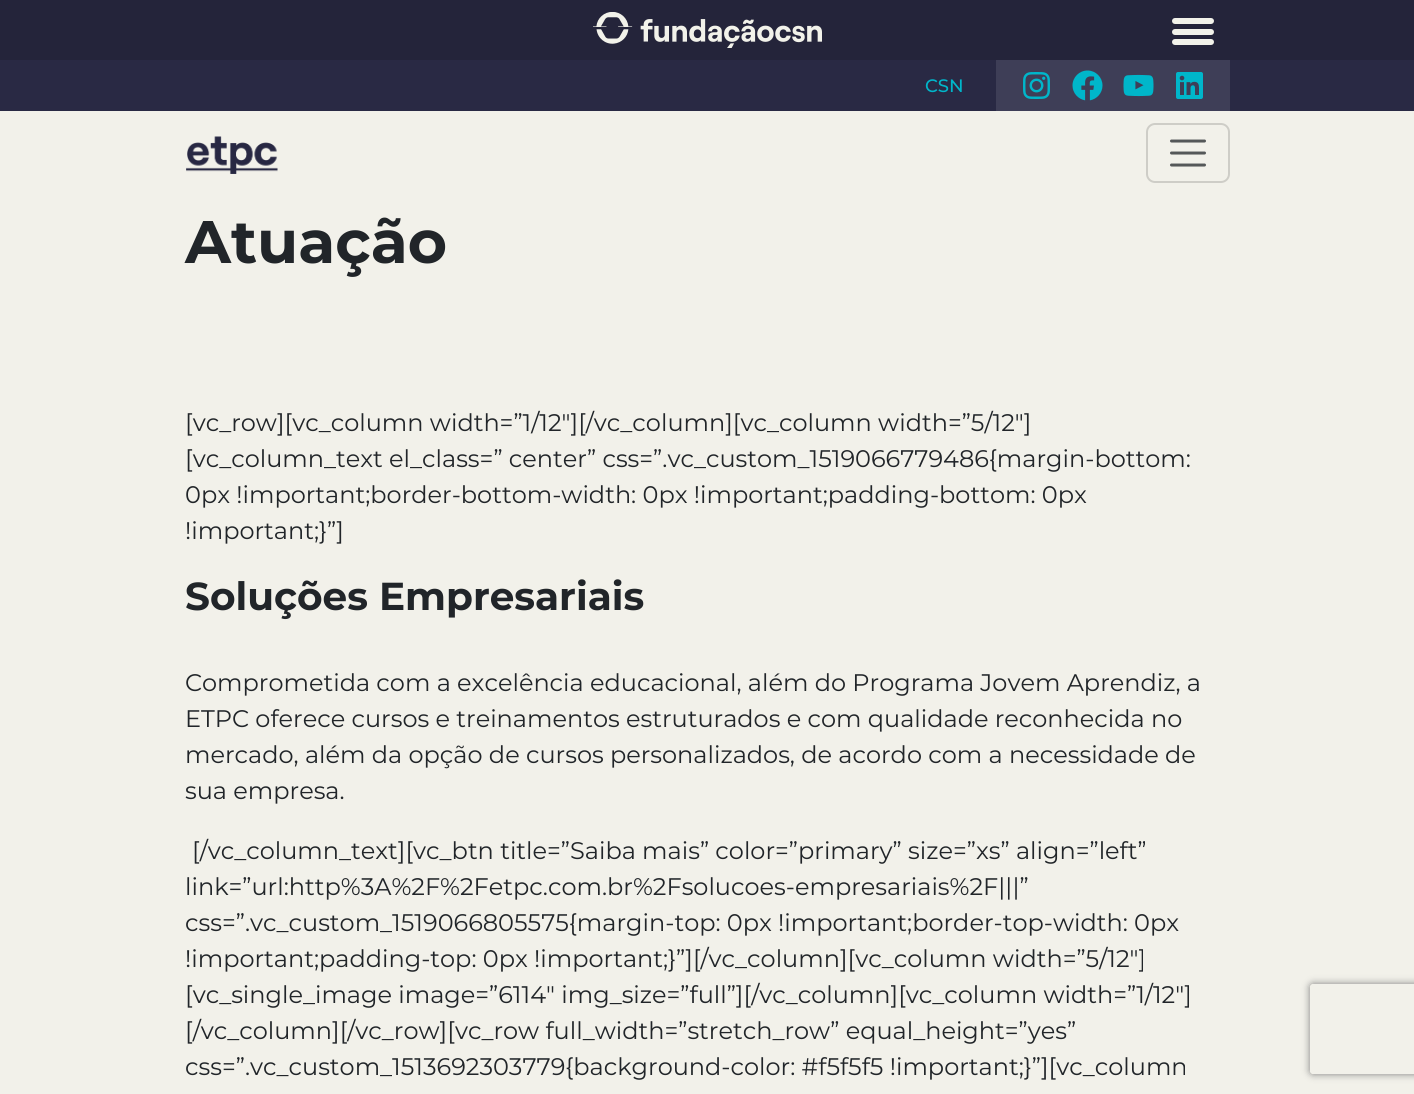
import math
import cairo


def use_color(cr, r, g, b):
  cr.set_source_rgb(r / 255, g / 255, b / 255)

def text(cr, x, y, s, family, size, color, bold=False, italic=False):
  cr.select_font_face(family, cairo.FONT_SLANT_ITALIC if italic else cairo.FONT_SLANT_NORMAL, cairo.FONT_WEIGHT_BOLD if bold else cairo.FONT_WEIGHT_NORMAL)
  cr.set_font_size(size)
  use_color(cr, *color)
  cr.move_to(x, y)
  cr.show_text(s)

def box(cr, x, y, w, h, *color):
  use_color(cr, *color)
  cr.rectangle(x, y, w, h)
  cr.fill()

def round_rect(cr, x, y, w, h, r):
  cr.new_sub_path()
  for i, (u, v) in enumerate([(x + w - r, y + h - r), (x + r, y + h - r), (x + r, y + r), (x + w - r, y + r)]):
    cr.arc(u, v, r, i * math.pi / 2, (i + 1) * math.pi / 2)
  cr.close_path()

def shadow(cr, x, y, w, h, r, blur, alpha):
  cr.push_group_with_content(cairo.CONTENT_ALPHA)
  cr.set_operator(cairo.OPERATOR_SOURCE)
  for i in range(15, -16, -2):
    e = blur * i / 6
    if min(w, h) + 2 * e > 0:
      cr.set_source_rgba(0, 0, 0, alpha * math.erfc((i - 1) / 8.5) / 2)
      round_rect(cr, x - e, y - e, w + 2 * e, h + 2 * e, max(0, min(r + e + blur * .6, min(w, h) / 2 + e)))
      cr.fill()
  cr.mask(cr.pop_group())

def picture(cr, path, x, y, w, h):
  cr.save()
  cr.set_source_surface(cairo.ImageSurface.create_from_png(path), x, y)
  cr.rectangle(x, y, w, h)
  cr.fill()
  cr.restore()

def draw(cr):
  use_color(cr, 242, 241, 234)
  cr.paint()
  box(cr, 0, 0, 1414, 60, 36, 36, 58)
  picture(cr, "img_01.png", 593, 12, 229, 36)
  use_color(cr, 242, 242, 234)
  round_rect(cr, 1172, 18, 42, 6, 3)
  cr.fill()
  round_rect(cr, 1172, 29, 42, 6, 3)
  cr.fill()
  round_rect(cr, 1172, 39, 42, 6, 3)
  cr.fill()
  box(cr, 0, 60, 1414, 51, 41, 41, 68)
  box(cr, 996, 60, 234, 51, 62, 62, 87)
  picture(cr, "img_02.png", 1023, 72, 27, 27)
  picture(cr, "img_03.png", 1072, 70, 31, 31)
  picture(cr, "img_04.png", 1123, 74, 31, 23)
  picture(cr, "img_05.png", 1176, 72, 27, 27)
  picture(cr, "img_06.png", 186, 136, 92, 38)
  round_rect(cr, 1147, 124, 82, 58, 8)
  use_color(cr, 206, 205, 199)
  cr.stroke()
  cr.new_path()
  cr.move_to(1171.5, 141)
  cr.line_to(1204.5, 141)
  cr.move_to(1171.5, 153)
  cr.line_to(1204.5, 153)
  cr.move_to(1171.5, 165)
  cr.line_to(1204.5, 165)
  use_color(cr, 85, 88, 89)
  cr.set_line_width(3)
  cr.set_line_cap(cairo.LINE_CAP_ROUND)
  cr.stroke()
  cr.save()
  cr.set_fill_rule(cairo.FILL_RULE_EVEN_ODD)
  cr.new_path()
  cr.move_to(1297, 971)
  cr.line_to(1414, 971)
  cr.line_to(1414, 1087)
  cr.line_to(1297, 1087)
  cr.close_path()
  cr.move_to(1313, 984)
  cr.line_to(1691, 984)
  cr.curve_to(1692.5, 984, 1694, 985.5, 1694, 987)
  cr.line_to(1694, 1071)
  cr.curve_to(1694, 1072.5, 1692.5, 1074, 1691, 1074)
  cr.line_to(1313, 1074)
  cr.curve_to(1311.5, 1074, 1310, 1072.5, 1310, 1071)
  cr.line_to(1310, 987)
  cr.curve_to(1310, 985.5, 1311.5, 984, 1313, 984)
  cr.close_path()
  cr.clip()
  use_color(cr, 128, 128, 128)
  shadow(cr, 1310, 984, 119, 90, 3, 4, 1)
  cr.restore()
  text(cr, 925, 92, "CSN", "Montserrat Medium", 18, (0, 182, 202))
  text(cr, 185, 263, "Atuação", "Montserrat", 60, (33, 37, 41), bold=True)
  text(cr, 185, 431, "[vc_row][vc_column width=”1/12″][/vc_column][vc_column width=”5/12″]", "Montserrat", 24, (33, 37, 41))
  text(cr, 185, 467, "[vc_column_text el_class=” center” css=”.vc_custom_1519066779486{margin-bottom:", "Montserrat", 24, (33, 37, 41))
  text(cr, 185, 503, "0px !important;border-bottom-width: 0px !important;padding-bottom: 0px", "Montserrat", 24, (33, 37, 41))
  text(cr, 185, 539, "!important;}”]", "Montserrat", 24, (33, 37, 41))
  text(cr, 185, 610, "Soluções Empresariais", "Montserrat", 39, (33, 37, 41), bold=True)
  text(cr, 185, 691, "Comprometida com a excelência educacional, além do Programa Jovem Aprendiz, a", "Montserrat", 24, (33, 37, 41))
  text(cr, 185, 727, "ETPC oferece cursos e treinamentos estruturados e com qualidade reconhecida no", "Montserrat", 24, (33, 37, 41))
  text(cr, 185, 763, "mercado, além da opção de cursos personalizados, de acordo com a necessidade de", "Montserrat", 24, (33, 37, 41))
  text(cr, 185, 799, "sua empresa.", "Montserrat", 24, (33, 37, 41))
  text(cr, 192, 859, "[/vc_column_text][vc_btn title=”Saiba mais” color=”primary” size=”xs” align=”left”", "Montserrat", 24, (33, 37, 41))
  text(cr, 185, 895, "link=”url:http%3A%2F%2Fetpc.com.br%2Fsolucoes-empresariais%2F|||”", "Montserrat", 24, (33, 37, 41))
  text(cr, 185, 931, "css=”.vc_custom_1519066805575{margin-top: 0px !important;border-top-width: 0px", "Montserrat", 24, (33, 37, 41))
  text(cr, 185, 967, "!important;padding-top: 0px !important;}”][/vc_column][vc_column width=”5/12″]", "Montserrat", 24, (33, 37, 41))
  text(cr, 185, 1003, "[vc_single_image image=”6114″ img_size=”full”][/vc_column][vc_column width=”1/12″]", "Montserrat", 24, (33, 37, 41))
  text(cr, 185, 1039, "[/vc_column][/vc_row][vc_row full_width=”stretch_row” equal_height=”yes”", "Montserrat", 24, (33, 37, 41))
  text(cr, 185, 1075, "css=”.vc_custom_1513692303779{background-color: #f5f5f5 !important;}”][vc_column", "Montserrat", 24, (33, 37, 41))


surface = cairo.ImageSurface(cairo.FORMAT_RGB24, 1414, 1094)
cr = cairo.Context(surface)
options = cairo.FontOptions()
options.set_hint_metrics(cairo.HINT_METRICS_OFF)
options.set_hint_style(cairo.HINT_STYLE_NONE)
cr.set_font_options(options)
cr.set_miter_limit(4)
draw(cr)
surface.write_to_png("out.png")
